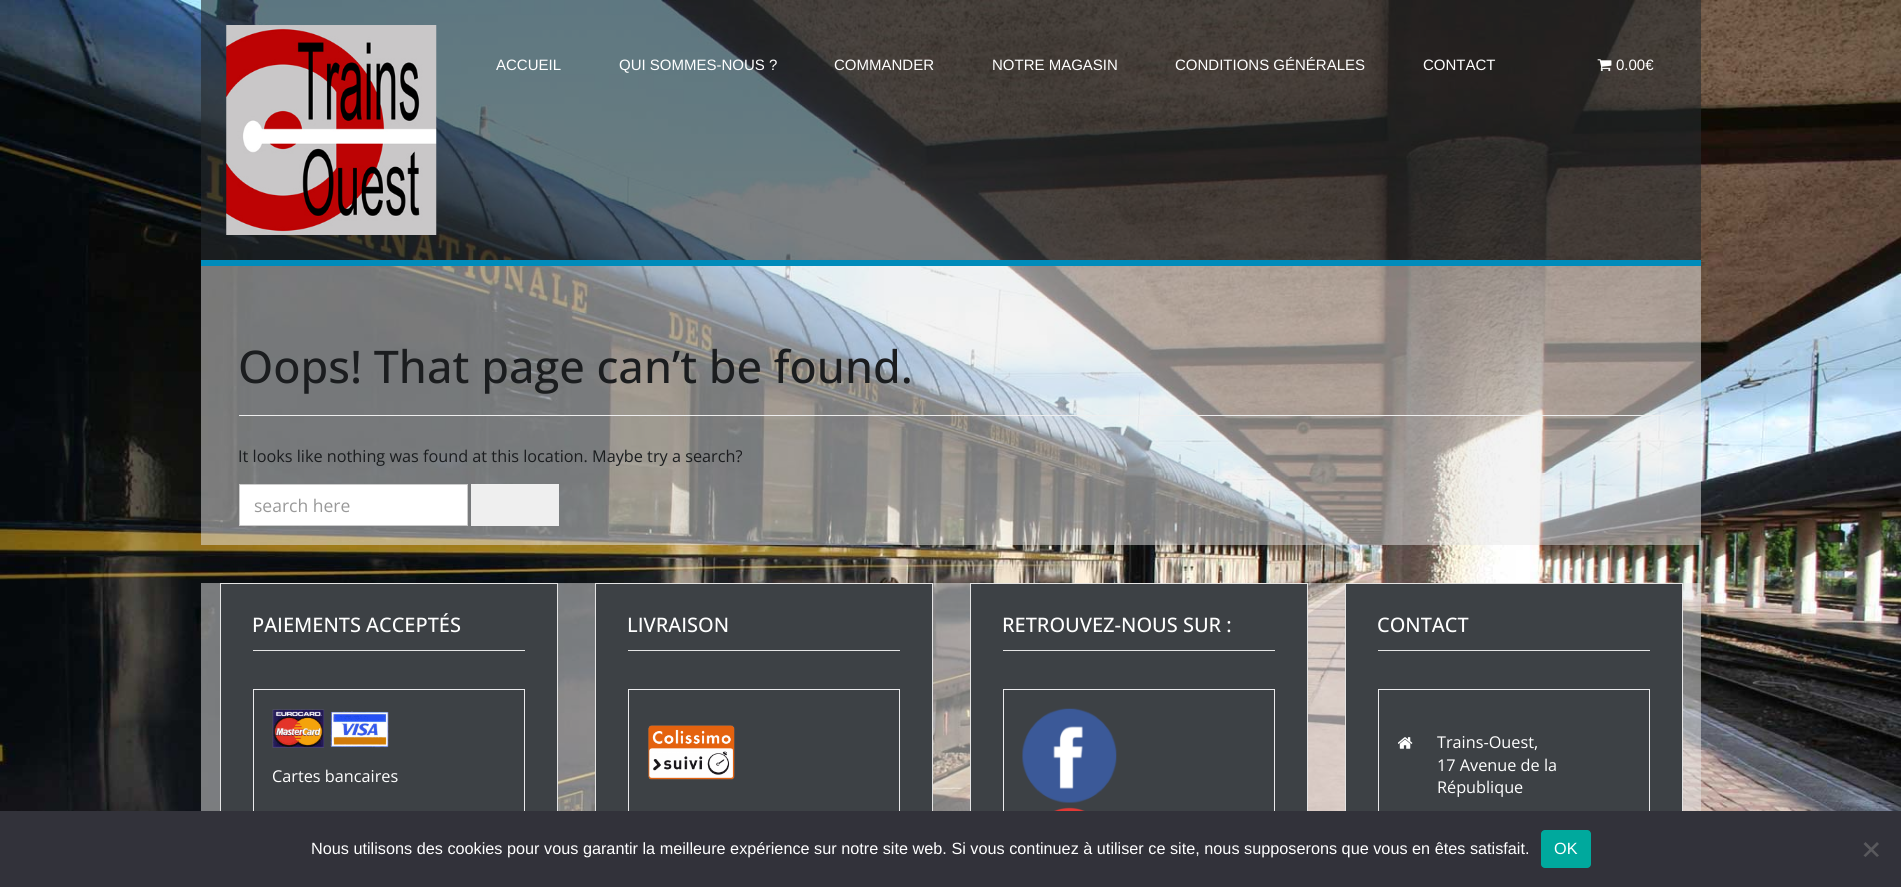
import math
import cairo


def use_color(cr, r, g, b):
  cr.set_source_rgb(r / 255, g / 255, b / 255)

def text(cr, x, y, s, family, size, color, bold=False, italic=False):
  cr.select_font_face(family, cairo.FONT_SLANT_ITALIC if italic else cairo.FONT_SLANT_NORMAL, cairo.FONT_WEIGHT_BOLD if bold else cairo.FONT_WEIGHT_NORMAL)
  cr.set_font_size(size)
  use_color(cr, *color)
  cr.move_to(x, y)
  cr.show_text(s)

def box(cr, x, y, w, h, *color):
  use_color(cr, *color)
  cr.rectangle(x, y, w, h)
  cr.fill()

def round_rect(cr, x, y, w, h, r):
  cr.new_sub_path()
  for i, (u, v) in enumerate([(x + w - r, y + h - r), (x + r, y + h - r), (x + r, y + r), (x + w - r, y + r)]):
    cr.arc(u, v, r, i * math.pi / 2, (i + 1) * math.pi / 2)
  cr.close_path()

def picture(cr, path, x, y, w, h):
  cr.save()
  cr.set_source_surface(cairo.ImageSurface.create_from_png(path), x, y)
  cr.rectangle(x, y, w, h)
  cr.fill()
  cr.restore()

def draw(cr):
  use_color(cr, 255, 255, 255)
  cr.paint()
  picture(cr, "img_01.png", 0, 0, 1901, 811)
  cr.set_source_rgba(0.149, 0.165, 0.18, 0.6)
  cr.rectangle(201, 0, 1500, 260)
  cr.fill()
  box(cr, 201, 260, 1500, 6, 0, 139, 186)
  picture(cr, "img_02.png", 226, 25, 211, 210)
  picture(cr, "img_03.png", 1597, 59, 15, 13)
  cr.set_source_rgba(0.914, 0.914, 0.914, 0.5)
  cr.rectangle(201, 266, 1500, 279)
  cr.fill()
  box(cr, 239, 415, 1425, 1, 238, 238, 238)
  use_color(cr, 255, 255, 255)
  cr.rectangle(239.5, 484.5, 228, 41)
  cr.fill_preserve()
  use_color(cr, 204, 204, 204)
  cr.set_line_width(1)
  cr.stroke()
  box(cr, 471, 484, 88, 42, 239, 239, 239)
  cr.set_source_rgba(0.914, 0.914, 0.914, 0.5)
  cr.rectangle(201, 583, 1500, 228)
  cr.fill()
  box(cr, 221, 584, 336, 227, 61, 65, 69)
  cr.rectangle(220.5, 583.5, 337, 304)
  use_color(cr, 229, 229, 229)
  cr.stroke()
  box(cr, 253, 650, 272, 1, 229, 229, 229)
  cr.rectangle(253.5, 689.5, 271, 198)
  use_color(cr, 234, 234, 236)
  cr.stroke()
  picture(cr, "img_04.png", 272, 709, 117, 39)
  box(cr, 596, 584, 336, 227, 61, 65, 69)
  cr.rectangle(595.5, 583.5, 337, 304)
  use_color(cr, 229, 229, 229)
  cr.stroke()
  box(cr, 628, 650, 272, 1, 229, 229, 229)
  cr.rectangle(628.5, 689.5, 271, 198)
  use_color(cr, 234, 234, 236)
  cr.stroke()
  picture(cr, "img_05.png", 648, 725, 87, 55)
  box(cr, 971, 584, 336, 227, 61, 65, 69)
  cr.rectangle(970.5, 583.5, 337, 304)
  use_color(cr, 229, 229, 229)
  cr.stroke()
  box(cr, 1003, 650, 272, 1, 229, 229, 229)
  cr.rectangle(1003.5, 689.5, 271, 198)
  use_color(cr, 234, 234, 236)
  cr.stroke()
  picture(cr, "img_06.png", 1022, 708, 95, 95)
  picture(cr, "img_07.png", 1054, 807, 31, 4)
  box(cr, 1346, 584, 336, 227, 61, 65, 69)
  cr.rectangle(1345.5, 583.5, 337, 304)
  use_color(cr, 229, 229, 229)
  cr.stroke()
  box(cr, 1378, 650, 272, 1, 229, 229, 229)
  cr.rectangle(1378.5, 689.5, 271, 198)
  use_color(cr, 234, 234, 236)
  cr.stroke()
  picture(cr, "img_08.png", 1398, 737, 15, 12)
  box(cr, 0, 811, 1901, 76, 50, 50, 58)
  use_color(cr, 0, 169, 157)
  round_rect(cr, 1541, 830, 50, 38, 4)
  cr.fill()
  use_color(cr, 89, 89, 93)
  cr.new_path()
  cr.move_to(1877, 842)
  cr.line_to(1879, 844)
  cr.line_to(1865.5, 857)
  cr.line_to(1863.5, 855.5)
  cr.close_path()
  cr.fill()
  cr.new_path()
  cr.move_to(1863.5, 844)
  cr.line_to(1865.5, 842)
  cr.line_to(1879, 855.5)
  cr.line_to(1877, 857)
  cr.close_path()
  cr.fill()
  text(cr, 496, 70, "ACCUEIL", "Liberation Sans", 15, (255, 255, 255))
  text(cr, 619, 70, "QUI SOMMES-NOUS ?", "Liberation Sans", 15, (255, 255, 255))
  text(cr, 834, 70, "COMMANDER", "Liberation Sans", 15, (255, 255, 255))
  text(cr, 992, 70, "NOTRE MAGASIN", "Liberation Sans", 15, (255, 255, 255))
  text(cr, 1175, 70, "CONDITIONS GÉNÉRALES", "Liberation Sans", 15, (255, 255, 255))
  text(cr, 1423, 70, "CONTACT", "Liberation Sans", 15, (255, 255, 255))
  text(cr, 1616, 70, "0.00€", "Liberation Sans", 15, (255, 255, 255))
  text(cr, 238, 383, "Oops! That page can’t be found.", "Open Sans Medium", 45, (27, 29, 31))
  text(cr, 238, 462, "It looks like nothing was found at this location. Maybe try a search?", "Open Sans", 16.25, (27, 29, 31))
  text(cr, 254, 512, "search here", "Open Sans", 17.5, (153, 153, 153))
  text(cr, 252, 632, "PAIEMENTS ACCEPTÉS", "Open Sans Medium", 20, (255, 255, 255))
  text(cr, 272, 782, "Cartes bancaires", "Open Sans", 16.25, (255, 255, 255))
  text(cr, 627, 632, "LIVRAISON", "Open Sans Medium", 20, (255, 255, 255))
  text(cr, 1002, 632, "RETROUVEZ-NOUS SUR :", "Open Sans Medium", 20, (255, 255, 255))
  text(cr, 1377, 632, "CONTACT", "Open Sans Medium", 20, (255, 255, 255))
  text(cr, 1437, 748, "Trains-Ouest,", "Open Sans", 16.25, (255, 255, 255))
  text(cr, 1437, 771, "17 Avenue de la", "Open Sans", 16.25, (255, 255, 255))
  text(cr, 1437, 793, "République", "Open Sans", 16.25, (255, 255, 255))
  text(cr, 311, 854, "Nous utilisons des cookies pour vous garantir la meilleure expérience sur notre site web. Si vous continuez à utiliser ce site, nous supposerons que vous en êtes satisfait.", "Liberation Sans", 16.25, (255, 255, 255))
  text(cr, 1554, 854, "OK", "Liberation Sans", 16.25, (255, 255, 255))


surface = cairo.ImageSurface(cairo.FORMAT_RGB24, 1901, 887)
cr = cairo.Context(surface)
options = cairo.FontOptions()
options.set_hint_metrics(cairo.HINT_METRICS_OFF)
options.set_hint_style(cairo.HINT_STYLE_NONE)
cr.set_font_options(options)
cr.set_miter_limit(4)
draw(cr)
surface.write_to_png("out.png")
